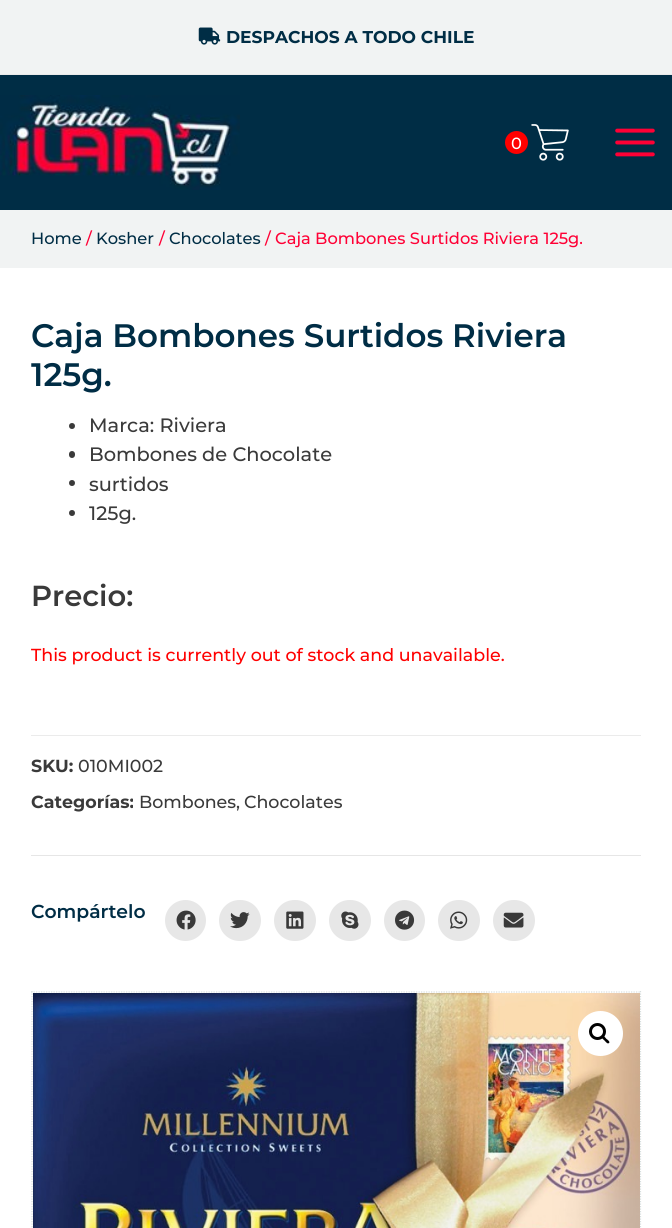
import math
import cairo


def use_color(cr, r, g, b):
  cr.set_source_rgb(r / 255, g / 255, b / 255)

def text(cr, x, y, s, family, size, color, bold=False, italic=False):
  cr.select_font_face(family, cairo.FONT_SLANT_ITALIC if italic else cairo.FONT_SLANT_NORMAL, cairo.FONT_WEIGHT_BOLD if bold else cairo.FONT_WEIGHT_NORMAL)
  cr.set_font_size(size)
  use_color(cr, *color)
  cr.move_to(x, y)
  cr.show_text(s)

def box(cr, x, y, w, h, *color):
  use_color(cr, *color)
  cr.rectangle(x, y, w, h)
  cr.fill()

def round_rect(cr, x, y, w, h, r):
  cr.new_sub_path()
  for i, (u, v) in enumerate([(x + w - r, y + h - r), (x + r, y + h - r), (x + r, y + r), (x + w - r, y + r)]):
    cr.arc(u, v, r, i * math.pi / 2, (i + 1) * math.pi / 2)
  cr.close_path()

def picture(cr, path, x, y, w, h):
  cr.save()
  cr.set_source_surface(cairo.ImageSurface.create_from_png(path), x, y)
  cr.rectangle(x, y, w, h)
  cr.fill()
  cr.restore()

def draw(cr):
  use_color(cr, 255, 255, 255)
  cr.paint()
  box(cr, 0, 0, 672, 74, 241, 243, 243)
  box(cr, 0, 74, 672, 1, 234, 234, 234)
  picture(cr, "img_01.png", 198, 27, 23, 18)
  box(cr, 0, 75, 672, 135, 0, 45, 69)
  picture(cr, "img_02.png", 0, 95, 240, 95)
  use_color(cr, 255, 0, 0)
  cr.arc(516.5, 142.5, 11.5, 0, 2 * math.pi)
  cr.fill()
  picture(cr, "img_03.png", 531, 124, 38, 37)
  picture(cr, "img_04.png", 615, 128, 40, 29)
  box(cr, 0, 210, 672, 58, 241, 243, 243)
  use_color(cr, 58, 58, 58)
  cr.arc(72, 426, 3, 0, 2 * math.pi)
  cr.fill()
  round_rect(cr, 69, 451, 6, 7, 3)
  cr.fill()
  cr.arc(72, 483, 3, 0, 2 * math.pi)
  cr.fill()
  cr.arc(72, 513, 3, 0, 2 * math.pi)
  cr.fill()
  box(cr, 31, 735, 610, 1, 235, 235, 235)
  box(cr, 31, 855, 610, 1, 230, 230, 230)
  use_color(cr, 231, 231, 231)
  cr.arc(185.5, 920.5, 20.5, 0, 2 * math.pi)
  cr.fill()
  picture(cr, "img_05.png", 176, 910, 20, 20)
  round_rect(cr, 219, 900, 42, 41, 20.5)
  cr.fill()
  picture(cr, "img_06.png", 230, 912, 20, 17)
  round_rect(cr, 274, 900, 42, 41, 20.5)
  cr.fill()
  picture(cr, "img_07.png", 286, 911, 18, 18)
  round_rect(cr, 329, 900, 42, 41, 20.5)
  cr.fill()
  picture(cr, "img_08.png", 341, 911, 18, 18)
  cr.arc(404.5, 920.5, 20.5, 0, 2 * math.pi)
  cr.fill()
  picture(cr, "img_09.png", 395, 910, 20, 20)
  round_rect(cr, 438, 900, 42, 41, 20.5)
  cr.fill()
  picture(cr, "img_10.png", 450, 911, 18, 18)
  round_rect(cr, 493, 900, 42, 41, 20.5)
  cr.fill()
  picture(cr, "img_11.png", 503, 912, 21, 16)
  cr.new_path()
  cr.move_to(31, 992)
  cr.line_to(641, 992)
  use_color(cr, 215, 222, 222)
  cr.set_line_width(1.2)
  cr.set_dash([1.25, 1.25])
  cr.stroke()
  cr.new_path()
  cr.move_to(640.5, 991)
  cr.line_to(640.5, 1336)
  cr.stroke()
  cr.new_path()
  cr.move_to(32, 991)
  cr.line_to(32, 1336)
  cr.stroke()
  picture(cr, "img_12.png", 33, 993, 607, 235)
  use_color(cr, 255, 255, 255)
  cr.arc(600.5, 1033.5, 22.5, 0, 2 * math.pi)
  cr.fill()
  cr.arc(597.5, 1031.5, 7, 0, 2 * math.pi)
  use_color(cr, 0, 0, 0)
  cr.set_line_width(3)
  cr.set_dash([])
  cr.stroke()
  cr.new_path()
  cr.move_to(602, 1036)
  cr.curve_to(603.5, 1034.5, 605.5, 1038, 606.5, 1039)
  cr.curve_to(607.5, 1039.5, 610.5, 1042, 609, 1043)
  cr.curve_to(607.5, 1044.5, 605.5, 1041.5, 604.5, 1040.5)
  cr.curve_to(604, 1040, 600.5, 1037.5, 602, 1036)
  cr.close_path()
  cr.fill()
  text(cr, 226, 43, "DESPACHOS A TODO CHILE", "Montserrat", 17.1, (0, 45, 69), bold=True)
  text(cr, 511, 149, "0", "Montserrat Medium", 16.25, (255, 255, 255))
  text(cr, 31, 244, "Home", "Montserrat Medium", 16.25, (0, 45, 69))
  text(cr, 86, 244, "/", "Montserrat Medium", 16.25, (255, 0, 53))
  text(cr, 96, 244, "Kosher", "Montserrat Medium", 16.25, (0, 45, 69))
  text(cr, 159, 244, "/", "Montserrat Medium", 16.25, (255, 0, 53))
  text(cr, 169, 244, "Chocolates", "Montserrat Medium", 16.25, (0, 45, 69))
  text(cr, 265, 244, "/ Caja Bombones Surtidos Riviera 125g.", "Montserrat Medium", 16.25, (255, 0, 53))
  text(cr, 31, 347, "Caja Bombones Surtidos Riviera", "Montserrat SemiBold", 32.5, (0, 45, 69))
  text(cr, 31, 386, "125g.", "Montserrat SemiBold", 32.5, (0, 45, 69))
  text(cr, 89, 432, "Marca: Riviera", "Montserrat Medium", 19.4, (58, 58, 58))
  text(cr, 89, 461, "Bombones de Chocolate", "Montserrat Medium", 19.4, (58, 58, 58))
  text(cr, 89, 491, "surtidos", "Montserrat Medium", 19.4, (58, 58, 58))
  text(cr, 89, 520, "125g.", "Montserrat Medium", 19.4, (58, 58, 58))
  text(cr, 31, 606, "Precio:", "Montserrat SemiBold", 29, (58, 58, 58))
  text(cr, 31, 661, "This product is currently out of stock and unavailable.", "Montserrat Medium", 17.45, (255, 0, 0))
  text(cr, 31, 772, "SKU:", "Montserrat", 17.45, (58, 58, 58), bold=True)
  text(cr, 78, 772, "010MI002", "Montserrat Medium", 17.45, (58, 58, 58))
  text(cr, 31, 808, "Categorías:", "Montserrat", 17.45, (58, 58, 58), bold=True)
  text(cr, 139, 808, "Bombones", "Montserrat Medium", 17.45, (58, 58, 58))
  text(cr, 236, 808, ",", "Montserrat Medium", 17.45, (58, 58, 58))
  text(cr, 244, 808, "Chocolates", "Montserrat Medium", 17.45, (58, 58, 58))
  text(cr, 31, 918, "Compártelo", "Montserrat SemiBold", 18.75, (0, 45, 69))


surface = cairo.ImageSurface(cairo.FORMAT_RGB24, 672, 1228)
cr = cairo.Context(surface)
options = cairo.FontOptions()
options.set_hint_metrics(cairo.HINT_METRICS_OFF)
options.set_hint_style(cairo.HINT_STYLE_NONE)
cr.set_font_options(options)
cr.set_miter_limit(4)
draw(cr)
surface.write_to_png("out.png")
